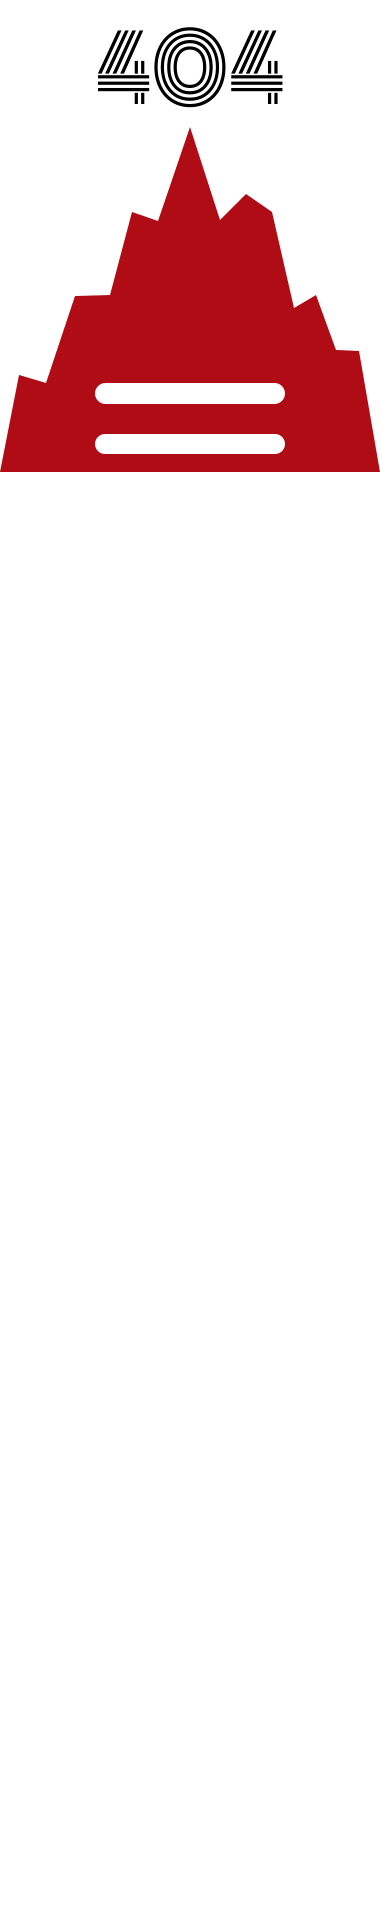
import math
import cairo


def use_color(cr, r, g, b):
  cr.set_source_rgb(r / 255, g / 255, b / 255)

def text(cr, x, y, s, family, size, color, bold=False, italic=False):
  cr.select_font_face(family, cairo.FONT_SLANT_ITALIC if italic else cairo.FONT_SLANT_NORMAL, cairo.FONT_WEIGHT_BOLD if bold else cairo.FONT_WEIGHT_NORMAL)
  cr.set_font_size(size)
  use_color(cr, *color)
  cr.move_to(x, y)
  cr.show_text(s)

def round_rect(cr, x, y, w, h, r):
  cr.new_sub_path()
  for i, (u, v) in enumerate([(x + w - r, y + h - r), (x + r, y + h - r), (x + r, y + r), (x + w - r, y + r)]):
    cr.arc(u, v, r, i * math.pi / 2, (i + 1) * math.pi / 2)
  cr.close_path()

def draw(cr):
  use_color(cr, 255, 255, 255)
  cr.paint()
  use_color(cr, 176, 12, 21)
  cr.new_path()
  cr.move_to(46, 383)
  cr.line_to(75, 296)
  cr.line_to(110, 295)
  cr.line_to(132, 212)
  cr.line_to(158, 221)
  cr.line_to(190, 127)
  cr.line_to(220, 220)
  cr.line_to(246, 194)
  cr.line_to(272, 212)
  cr.line_to(294, 308)
  cr.line_to(316, 295)
  cr.line_to(336, 350)
  cr.line_to(359, 351)
  cr.line_to(380, 472)
  cr.line_to(0, 472)
  cr.line_to(19, 375)
  cr.close_path()
  cr.fill()
  use_color(cr, 255, 255, 255)
  round_rect(cr, 95, 383, 190, 21, 10.5)
  cr.fill()
  round_rect(cr, 95, 434, 190, 20, 10)
  cr.fill()
  text(cr, 95, 104, "404", "Monoton", 91, (0, 0, 0))


surface = cairo.ImageSurface(cairo.FORMAT_RGB24, 380, 1930)
cr = cairo.Context(surface)
options = cairo.FontOptions()
options.set_hint_metrics(cairo.HINT_METRICS_OFF)
options.set_hint_style(cairo.HINT_STYLE_NONE)
cr.set_font_options(options)
cr.set_miter_limit(4)
draw(cr)
surface.write_to_png("out.png")
